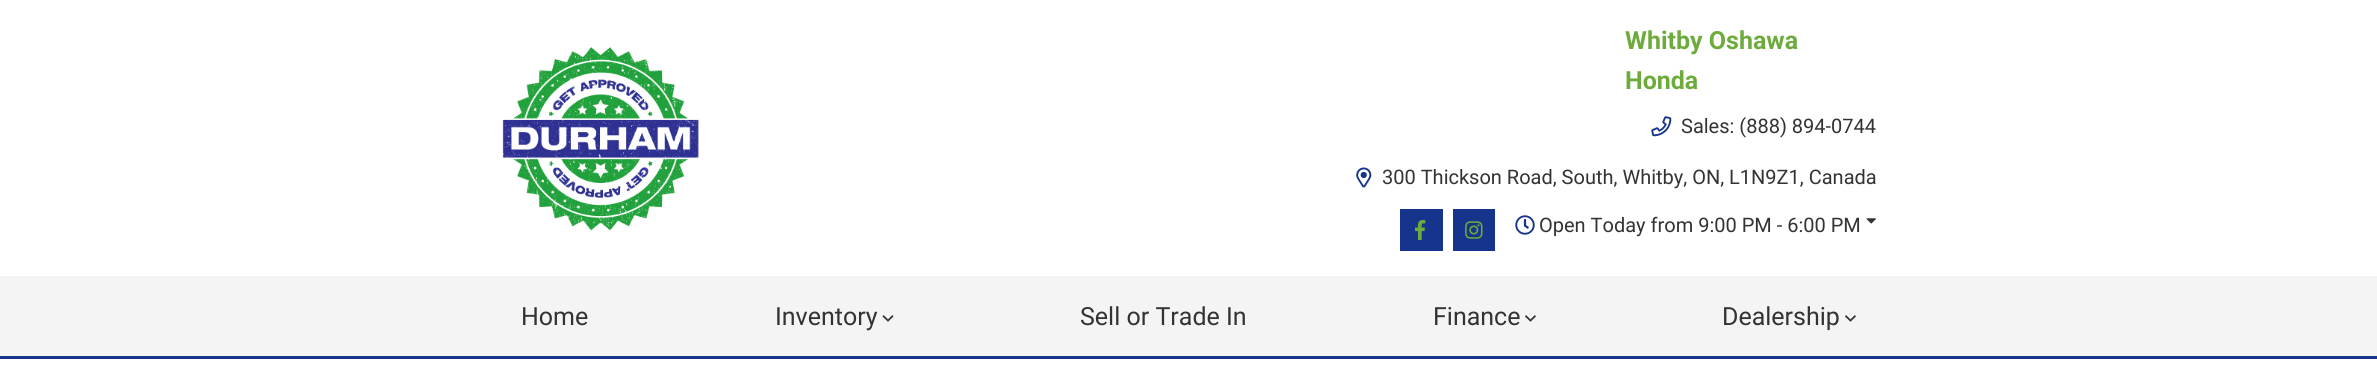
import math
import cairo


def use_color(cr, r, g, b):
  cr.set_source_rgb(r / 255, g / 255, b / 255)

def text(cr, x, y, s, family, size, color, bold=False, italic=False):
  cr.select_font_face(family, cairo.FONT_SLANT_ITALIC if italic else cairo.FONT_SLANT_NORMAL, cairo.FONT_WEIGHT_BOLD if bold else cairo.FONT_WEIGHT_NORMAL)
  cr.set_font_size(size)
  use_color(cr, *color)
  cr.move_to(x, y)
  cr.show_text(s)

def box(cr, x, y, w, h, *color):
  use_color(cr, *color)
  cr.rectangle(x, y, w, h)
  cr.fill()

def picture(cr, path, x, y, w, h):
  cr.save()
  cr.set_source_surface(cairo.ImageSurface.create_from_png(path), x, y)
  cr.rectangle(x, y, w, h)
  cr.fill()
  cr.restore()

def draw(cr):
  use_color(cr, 255, 255, 255)
  cr.paint()
  picture(cr, "img_01.png", 502, 47, 197, 184)
  picture(cr, "img_02.png", 1651, 116, 21, 21)
  picture(cr, "img_03.png", 1356, 167, 16, 21)
  box(cr, 1400, 209, 43, 42, 22, 52, 140)
  picture(cr, "img_04.png", 1415, 220, 11, 20)
  box(cr, 1453, 209, 42, 42, 22, 52, 140)
  picture(cr, "img_05.png", 1465, 221, 18, 18)
  picture(cr, "img_06.png", 1515, 215, 20, 20)
  picture(cr, "img_07.png", 1866, 218, 10, 6)
  box(cr, 0, 276, 2377, 80, 244, 244, 244)
  box(cr, 0, 356, 2377, 3, 22, 52, 140)
  picture(cr, "img_08.png", 882, 315, 12, 7)
  picture(cr, "img_09.png", 1525, 315, 11, 7)
  picture(cr, "img_09.png", 1845, 315, 11, 7)
  text(cr, 1625, 49, "Whitby Oshawa", "Roboto", 25, (109, 171, 60), bold=True)
  text(cr, 1625, 89, "Honda", "Roboto", 25, (109, 171, 60), bold=True)
  text(cr, 1681, 133, "Sales: (888) 894-0744", "Roboto", 20, (51, 51, 51))
  text(cr, 1382, 184, "300 Thickson Road, South, Whitby, ON, L1N9Z1, Canada", "Roboto", 20, (51, 51, 51))
  text(cr, 1539, 232, "Open Today from 9:00 PM - 6:00 PM", "Roboto", 20, (51, 51, 51))
  text(cr, 521, 325, "Home", "Roboto", 25, (51, 51, 51))
  text(cr, 775, 325, "Inventory", "Roboto", 25, (51, 51, 51))
  text(cr, 1080, 325, "Sell or Trade In", "Roboto", 25, (51, 51, 51))
  text(cr, 1433, 325, "Finance", "Roboto", 25, (51, 51, 51))
  text(cr, 1722, 325, "Dealership", "Roboto", 25, (51, 51, 51))


surface = cairo.ImageSurface(cairo.FORMAT_RGB24, 2377, 377)
cr = cairo.Context(surface)
options = cairo.FontOptions()
options.set_hint_metrics(cairo.HINT_METRICS_OFF)
options.set_hint_style(cairo.HINT_STYLE_NONE)
cr.set_font_options(options)
cr.set_miter_limit(4)
draw(cr)
surface.write_to_png("out.png")
